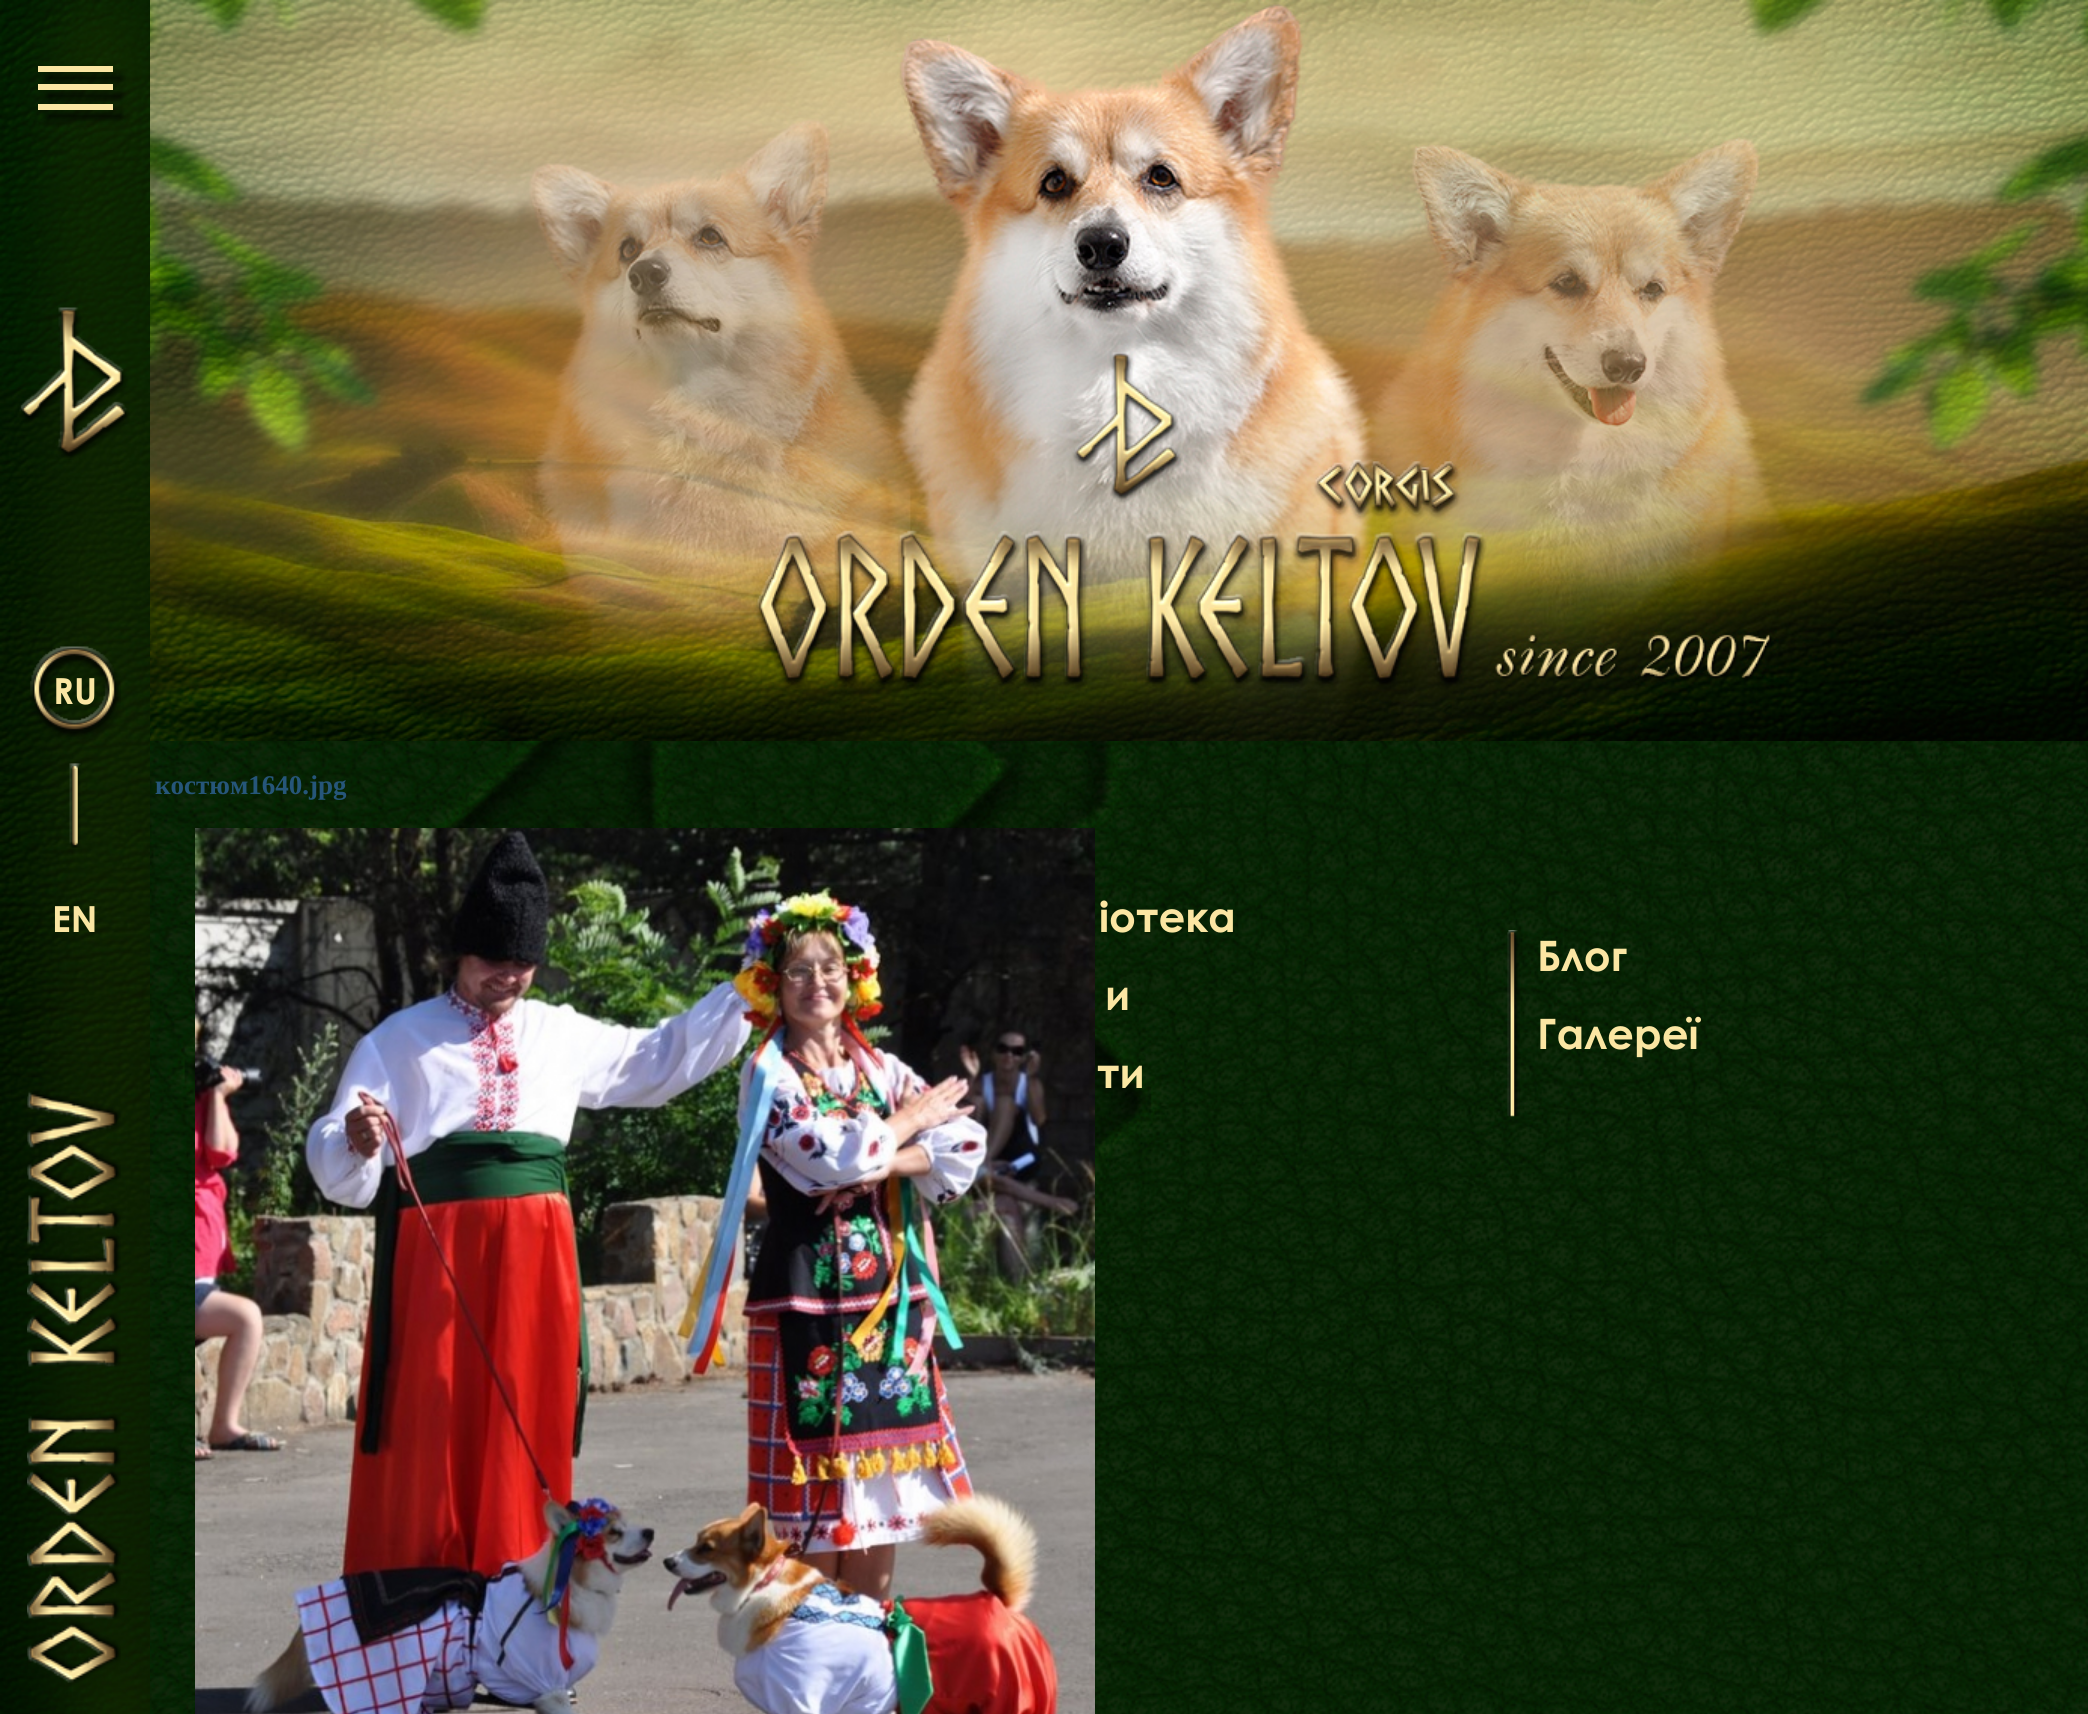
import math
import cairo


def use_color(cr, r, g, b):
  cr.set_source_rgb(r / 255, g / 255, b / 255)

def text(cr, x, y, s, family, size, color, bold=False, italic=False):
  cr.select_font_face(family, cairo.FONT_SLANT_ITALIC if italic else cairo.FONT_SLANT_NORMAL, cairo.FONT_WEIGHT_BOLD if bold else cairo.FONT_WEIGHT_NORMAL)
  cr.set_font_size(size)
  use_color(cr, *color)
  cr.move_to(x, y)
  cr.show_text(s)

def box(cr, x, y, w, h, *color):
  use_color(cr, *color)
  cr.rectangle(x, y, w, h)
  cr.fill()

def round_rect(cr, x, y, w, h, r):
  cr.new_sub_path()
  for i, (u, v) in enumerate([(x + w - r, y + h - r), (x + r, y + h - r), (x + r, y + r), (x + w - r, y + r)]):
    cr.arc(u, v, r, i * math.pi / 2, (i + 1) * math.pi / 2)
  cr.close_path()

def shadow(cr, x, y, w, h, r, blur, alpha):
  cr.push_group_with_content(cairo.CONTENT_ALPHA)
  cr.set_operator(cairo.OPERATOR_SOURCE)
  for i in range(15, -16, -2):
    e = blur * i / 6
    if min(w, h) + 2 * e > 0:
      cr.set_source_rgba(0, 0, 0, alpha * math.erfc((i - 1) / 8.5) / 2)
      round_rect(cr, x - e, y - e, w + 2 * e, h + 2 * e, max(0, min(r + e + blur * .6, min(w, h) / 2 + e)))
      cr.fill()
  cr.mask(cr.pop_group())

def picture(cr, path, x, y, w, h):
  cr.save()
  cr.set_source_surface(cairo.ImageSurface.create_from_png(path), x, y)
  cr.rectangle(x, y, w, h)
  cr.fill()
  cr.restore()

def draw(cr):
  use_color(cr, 255, 255, 255)
  cr.paint()
  picture(cr, "img_01.png", 150, 741, 1938, 973)
  picture(cr, "img_02.png", 0, 0, 150, 1714)
  use_color(cr, 0, 0, 0)
  shadow(cr, 47, 75, 75, 6, 0, 4, 0.7)
  box(cr, 38, 66, 75, 6, 251, 230, 163)
  use_color(cr, 0, 0, 0)
  shadow(cr, 47, 93, 75, 6, 0, 4, 0.7)
  box(cr, 38, 84, 75, 6, 251, 230, 163)
  use_color(cr, 0, 0, 0)
  shadow(cr, 47, 113, 75, 6, 0, 4, 0.7)
  box(cr, 38, 104, 75, 6, 251, 230, 163)
  picture(cr, "img_03.png", 19, 307, 111, 153)
  picture(cr, "img_04.png", 30, 646, 91, 94)
  picture(cr, "img_05.png", 69, 763, 12, 85)
  picture(cr, "img_06.png", 27, 1091, 94, 592)
  picture(cr, "img_07.png", 1507, 930, 13, 187)
  picture(cr, "img_08.png", 150, 0, 1938, 741)
  picture(cr, "img_09.png", 195, 828, 900, 886)
  text(cr, 53, 704, "RU", "Century Gothic", 36, (251, 230, 163), bold=True)
  text(cr, 52, 932, "EN", "Century Gothic", 36, (251, 230, 163), bold=True)
  text(cr, 1099, 932, "іотека", "Century Gothic", 42, (251, 230, 163), bold=True)
  text(cr, 1105, 1010, "и", "Century Gothic", 42, (251, 230, 163), bold=True)
  text(cr, 1097, 1088, "ти", "Century Gothic", 42, (251, 230, 163), bold=True)
  text(cr, 1537, 971, "Блог", "Century Gothic", 42, (251, 230, 163), bold=True)
  text(cr, 1537, 1049, "Галереї", "Century Gothic", 42, (251, 230, 163), bold=True)
  text(cr, 155, 794, "костюм1640.jpg", "Liberation Serif", 27, (38, 86, 122), bold=True)


surface = cairo.ImageSurface(cairo.FORMAT_RGB24, 2088, 1714)
cr = cairo.Context(surface)
options = cairo.FontOptions()
options.set_hint_metrics(cairo.HINT_METRICS_OFF)
options.set_hint_style(cairo.HINT_STYLE_NONE)
cr.set_font_options(options)
cr.set_miter_limit(4)
draw(cr)
surface.write_to_png("out.png")
